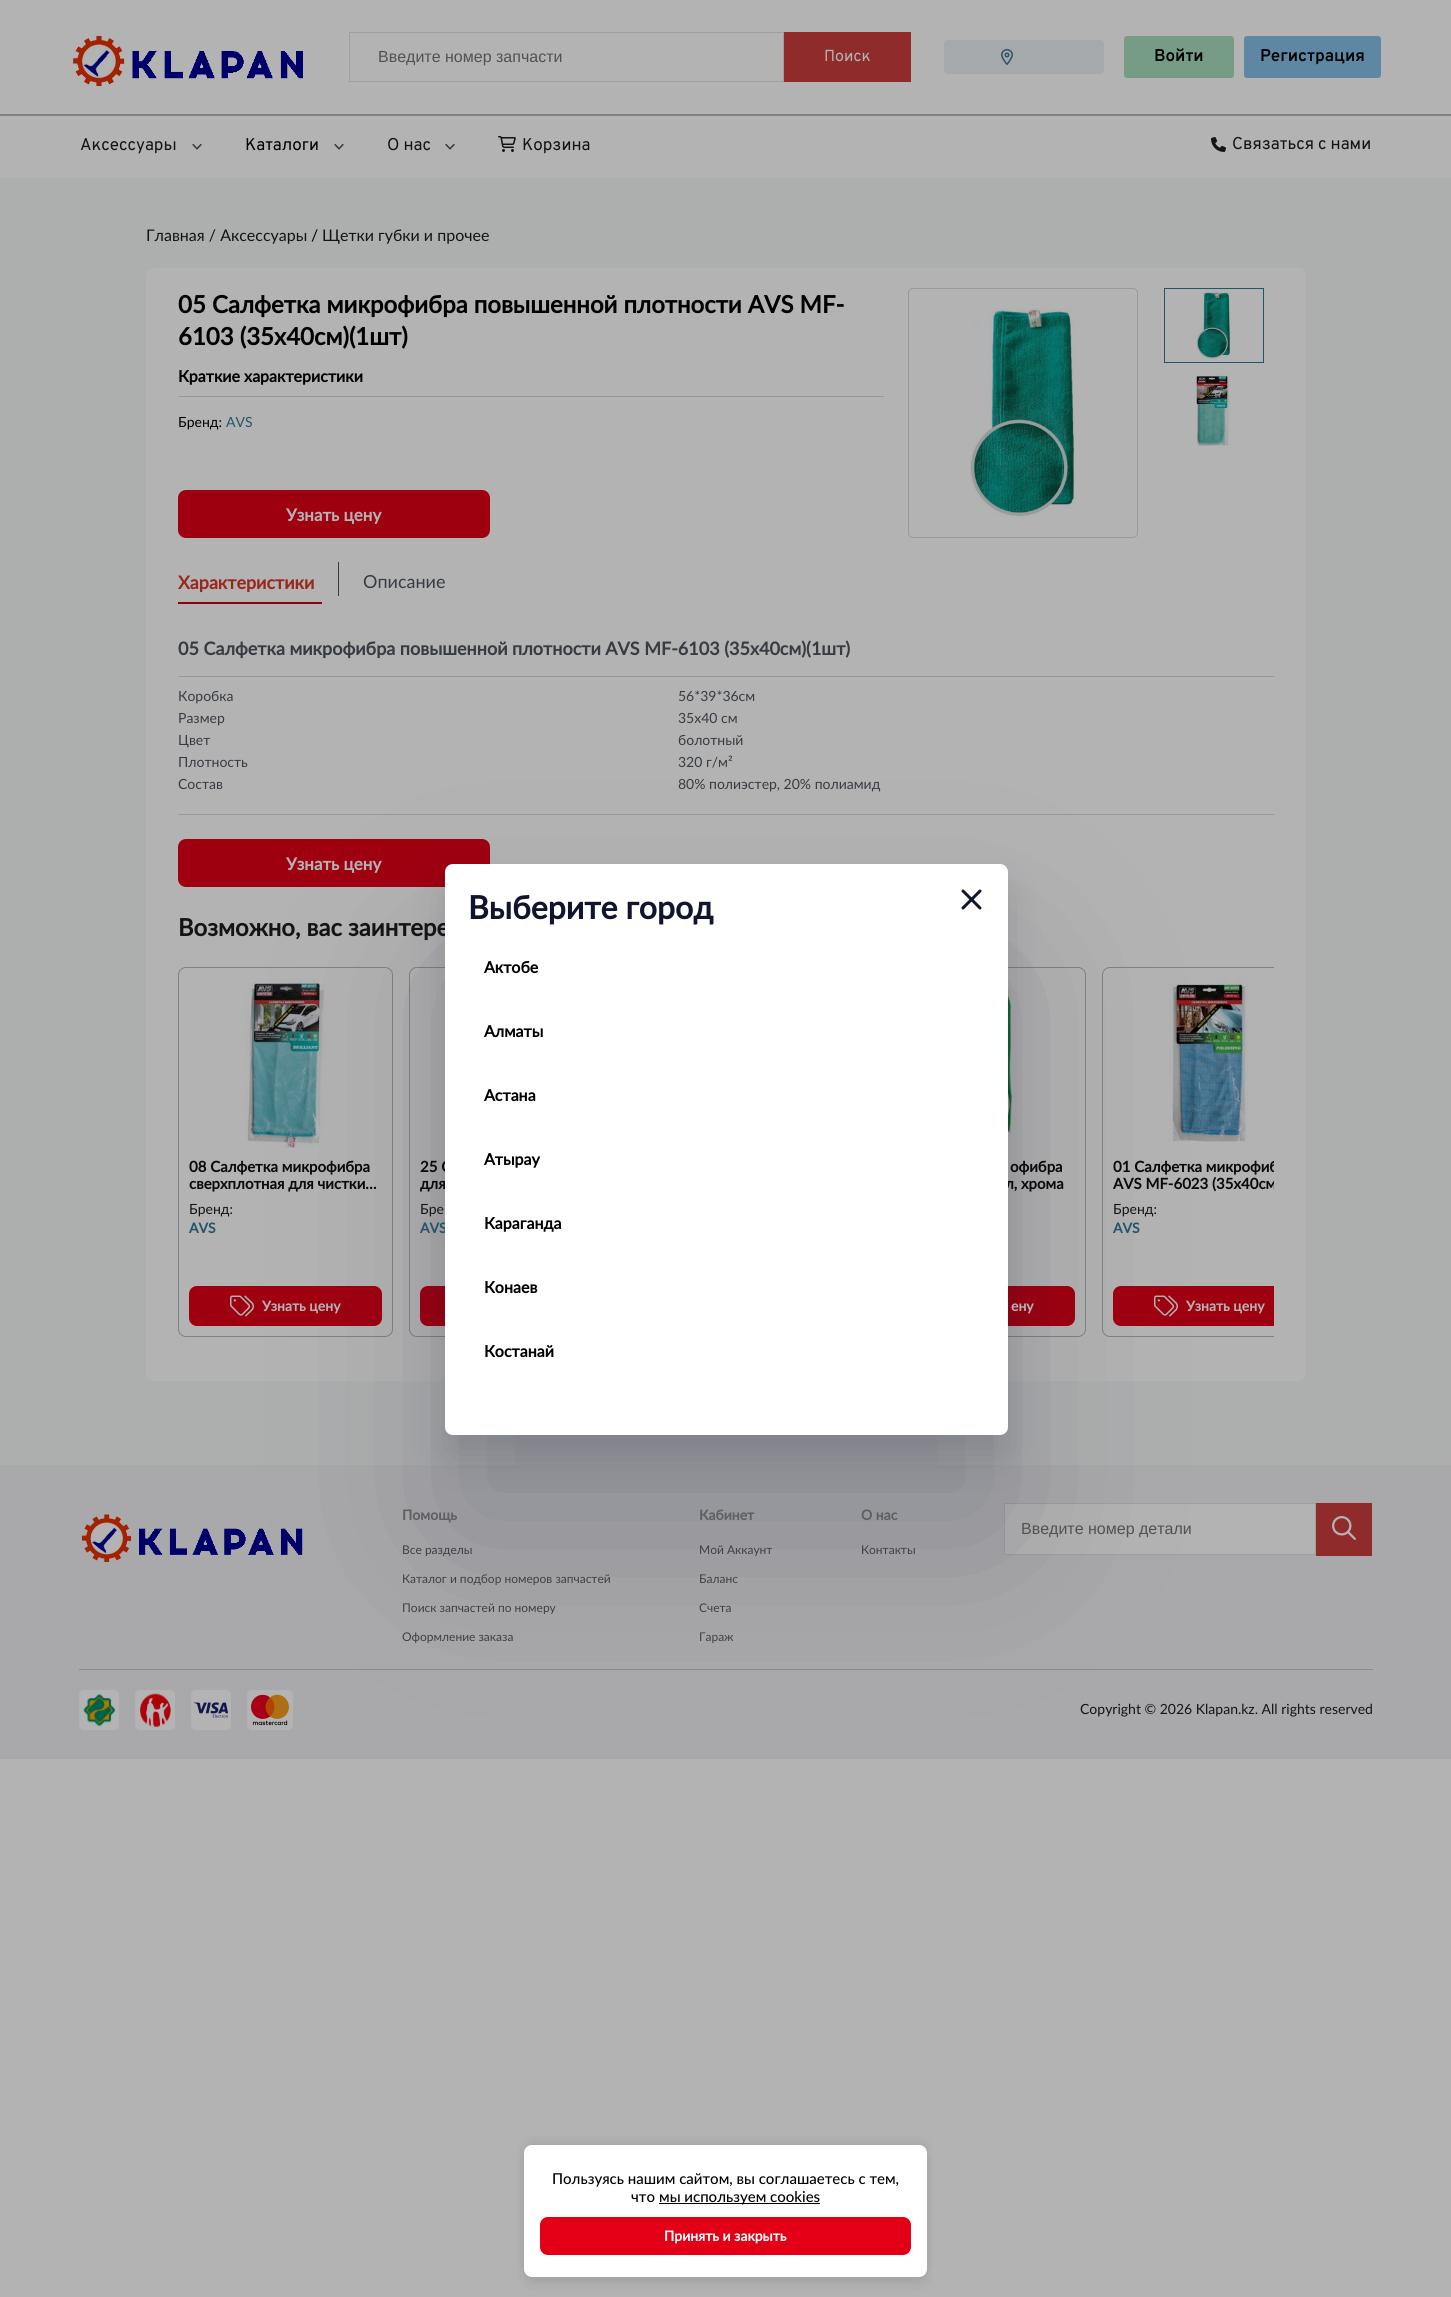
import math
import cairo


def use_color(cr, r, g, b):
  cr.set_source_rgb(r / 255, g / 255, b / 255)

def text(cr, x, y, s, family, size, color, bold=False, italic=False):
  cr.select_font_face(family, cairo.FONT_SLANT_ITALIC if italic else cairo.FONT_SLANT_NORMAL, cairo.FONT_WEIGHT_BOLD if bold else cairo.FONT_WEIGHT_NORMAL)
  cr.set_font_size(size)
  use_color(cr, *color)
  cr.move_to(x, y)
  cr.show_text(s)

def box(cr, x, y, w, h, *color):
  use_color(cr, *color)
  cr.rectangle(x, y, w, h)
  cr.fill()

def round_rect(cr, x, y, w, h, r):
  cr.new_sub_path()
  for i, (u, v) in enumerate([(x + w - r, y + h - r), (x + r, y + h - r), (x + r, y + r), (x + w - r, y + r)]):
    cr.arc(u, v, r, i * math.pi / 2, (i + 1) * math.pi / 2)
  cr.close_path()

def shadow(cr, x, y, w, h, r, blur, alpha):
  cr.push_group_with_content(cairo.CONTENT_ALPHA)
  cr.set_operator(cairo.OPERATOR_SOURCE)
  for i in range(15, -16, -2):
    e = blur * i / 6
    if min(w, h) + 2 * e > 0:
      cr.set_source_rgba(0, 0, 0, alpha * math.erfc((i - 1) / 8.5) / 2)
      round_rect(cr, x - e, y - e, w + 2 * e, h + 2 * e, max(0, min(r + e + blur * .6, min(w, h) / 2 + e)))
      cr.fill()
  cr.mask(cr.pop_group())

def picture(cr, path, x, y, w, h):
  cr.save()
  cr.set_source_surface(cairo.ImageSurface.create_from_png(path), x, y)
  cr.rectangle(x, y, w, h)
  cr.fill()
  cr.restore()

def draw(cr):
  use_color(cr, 179, 179, 179)
  cr.paint()
  picture(cr, "img_01.png", 73, 35, 230, 51)
  use_color(cr, 165, 169, 171)
  round_rect(cr, 944, 40, 160, 34, 4)
  cr.fill()
  picture(cr, "img_02.png", 1001, 49, 12, 16)
  use_color(cr, 118, 156, 134)
  round_rect(cr, 1124, 36, 110, 42, 3)
  cr.fill()
  use_color(cr, 93, 135, 163)
  round_rect(cr, 1244, 36, 137, 42, 3)
  cr.fill()
  box(cr, 0, 178, 1451, 1287, 173, 174, 174)
  use_color(cr, 179, 179, 179)
  round_rect(cr, 146, 268, 1160, 1113, 8)
  cr.fill()
  box(cr, 178, 814, 1096, 1, 151, 153, 155)
  use_color(cr, 159, 0, 15)
  round_rect(cr, 178, 839, 312, 48, 8)
  cr.fill()
  round_rect(cr, 178.5, 967.5, 214, 369, 7.5)
  use_color(cr, 126, 130, 134)
  cr.set_line_width(1)
  cr.stroke()
  picture(cr, "img_10.png", 245, 978, 80, 170)
  use_color(cr, 159, 0, 15)
  round_rect(cr, 189, 1286, 193, 40, 8)
  cr.fill()
  picture(cr, "img_11.png", 230, 1295, 24, 22)
  round_rect(cr, 409.5, 967.5, 214, 369, 7.5)
  use_color(cr, 126, 130, 134)
  cr.stroke()
  use_color(cr, 159, 0, 15)
  round_rect(cr, 420, 1286, 193, 40, 8)
  cr.fill()
  round_rect(cr, 871.5, 967.5, 214, 369, 7.5)
  use_color(cr, 126, 130, 134)
  cr.stroke()
  picture(cr, "img_12.png", 1008, 988, 10, 160)
  use_color(cr, 159, 0, 15)
  round_rect(cr, 882, 1286, 193, 40, 8)
  cr.fill()
  cr.save()
  cr.rectangle(162, 951, 1112, 410)
  cr.clip()
  round_rect(cr, 1102.5, 967.5, 214, 369, 7.5)
  use_color(cr, 126, 130, 134)
  cr.stroke()
  cr.restore()
  picture(cr, "img_13.png", 1169, 978, 80, 164)
  cr.new_path()
  cr.move_to(1121, 1286)
  cr.line_to(1274, 1286)
  cr.line_to(1274, 1326)
  cr.line_to(1121, 1326)
  cr.curve_to(1116.5, 1326, 1113, 1322.5, 1113, 1318)
  cr.line_to(1113, 1294)
  cr.curve_to(1113, 1289.5, 1116.5, 1286, 1121, 1286)
  cr.close_path()
  cr.fill()
  picture(cr, "img_11.png", 1154, 1295, 24, 22)
  box(cr, 0, 1465, 1451, 294, 169, 169, 171)
  picture(cr, "img_14.png", 81, 1514, 222, 48)
  use_color(cr, 179, 179, 179)
  cr.rectangle(1004.5, 1503.5, 311, 51)
  cr.fill_preserve()
  use_color(cr, 159, 159, 159)
  cr.stroke()
  box(cr, 79, 1669, 1294, 1, 139, 139, 141)
  use_color(cr, 179, 179, 179)
  round_rect(cr, 191, 1690, 40, 40, 5)
  cr.fill()
  picture(cr, "img_18.png", 193, 1702, 35, 16)
  round_rect(cr, 247, 1690, 46, 40, 5)
  cr.fill()
  picture(cr, "img_19.png", 251, 1694, 38, 32)
  use_color(cr, 16, 20, 45)
  shadow(cr, 445, 964, 563, 571, 8, 84.5, 0.2)
  shadow(cr, 445, 888, 563, 571, 8, 18.5, 0.14)
  cr.rectangle(349.5, 32.5, 434, 49)
  use_color(cr, 159, 159, 159)
  cr.stroke()
  box(cr, 784, 32, 127, 50, 143, 43, 43)
  box(cr, 0, 114, 1451, 2, 126, 130, 134)
  picture(cr, "img_04.png", 192, 143, 10, 7)
  picture(cr, "img_04.png", 334, 143, 10, 7)
  picture(cr, "img_04.png", 445, 143, 10, 7)
  picture(cr, "img_05.png", 498, 136, 18, 16)
  picture(cr, "img_06.png", 1211, 137, 15, 15)
  box(cr, 178, 396, 706, 1, 151, 153, 155)
  use_color(cr, 159, 0, 15)
  round_rect(cr, 178, 490, 312, 48, 8)
  cr.fill()
  round_rect(cr, 908.5, 288.5, 229, 249, 4.5)
  use_color(cr, 151, 153, 155)
  cr.stroke()
  picture(cr, "img_07.png", 970, 308, 105, 210)
  cr.rectangle(1164.5, 288.5, 99, 74)
  use_color(cr, 37, 84, 104)
  cr.stroke()
  picture(cr, "img_08.png", 1196, 289, 35, 72)
  picture(cr, "img_09.png", 1196, 374, 35, 72)
  box(cr, 178, 602, 144, 2, 143, 0, 14)
  box(cr, 338, 562, 1, 34, 55, 60, 67)
  box(cr, 178, 676, 1096, 1, 151, 153, 155)
  box(cr, 1316, 1503, 56, 53, 143, 43, 43)
  picture(cr, "img_15.png", 1332, 1516, 24, 24)
  use_color(cr, 179, 179, 179)
  round_rect(cr, 79, 1690, 40, 40, 5)
  cr.fill()
  picture(cr, "img_16.png", 83, 1694, 33, 33)
  round_rect(cr, 135, 1690, 40, 40, 5)
  cr.fill()
  picture(cr, "img_17.png", 140, 1692, 31, 36)
  use_color(cr, 16, 20, 45)
  shadow(cr, 524, 2141, 403, 132, 8, 5, 0.08)
  shadow(cr, 524, 2153, 403, 132, 8, 5, 0.08)
  use_color(cr, 255, 255, 255)
  round_rect(cr, 524, 2145, 403, 132, 8)
  cr.fill()
  box(cr, 659, 2203, 161, 1, 0, 0, 0)
  use_color(cr, 227, 0, 22)
  round_rect(cr, 540, 2217, 371, 38, 8)
  cr.fill()
  text(cr, 1154, 61, "Войти", "Overpass SemiBold", 17, (0, 0, 0))
  text(cr, 1260, 61, "Регистрация", "Overpass SemiBold", 17, (0, 0, 0))
  text(cr, 378, 62, "Введите номер запчасти", "Liberation Sans", 16, (82, 82, 82))
  text(cr, 824, 61, "Поиск", "Overpass", 16, (179, 179, 179))
  text(cr, 80, 150, "Аксессуары", "Overpass", 17, (18, 20, 22))
  text(cr, 245, 150, "Каталоги", "Overpass", 17, (0, 0, 0))
  text(cr, 387, 150, "О нас", "Overpass", 17, (18, 20, 22))
  text(cr, 522, 150, "Корзина", "Overpass", 17, (18, 20, 22))
  text(cr, 1232, 149, "Связаться с нами", "Overpass", 17, (18, 20, 22))
  text(cr, 146, 241, "Главная / Аксессуары", "Lato", 16, (18, 20, 22))
  text(cr, 311, 241, "/", "Lato", 16, (0, 0, 0))
  text(cr, 322, 241, "Щетки губки и прочее", "Lato", 16, (18, 20, 22))
  text(cr, 178, 313, "05 Салфетка микрофибра повышенной плотности AVS MF-", "Lato", 24, (0, 0, 0), bold=True)
  text(cr, 178, 345, "6103 (35х40см)(1шт)", "Lato", 24, (0, 0, 0), bold=True)
  text(cr, 178, 382, "Краткие характеристики", "Lato", 16, (0, 0, 0), bold=True)
  text(cr, 178, 427, "Бренд:", "Lato", 14, (0, 0, 0))
  text(cr, 226, 427, "AVS", "Lato", 14, (37, 84, 104))
  text(cr, 286, 521, "Узнать цену", "Lato", 17, (179, 179, 179), bold=True)
  text(cr, 178, 589, "Характеристики", "Lato", 18, (153, 39, 27), bold=True)
  text(cr, 363, 588, "Описание", "Lato", 18, (55, 60, 67))
  text(cr, 178, 655, "05 Салфетка микрофибра повышенной плотности AVS MF-6103 (35х40см)(1шт)", "Lato", 18, (55, 60, 67), bold=True)
  text(cr, 178, 701, "Коробка", "Lato", 14, (55, 60, 67))
  text(cr, 678, 701, "56*39*36см", "Lato", 14, (55, 60, 67))
  text(cr, 178, 723, "Размер", "Lato", 14, (55, 60, 67))
  text(cr, 678, 723, "35х40 см", "Lato", 14, (55, 60, 67))
  text(cr, 178, 745, "Цвет", "Lato", 14, (55, 60, 67))
  text(cr, 678, 745, "болотный", "Lato", 14, (55, 60, 67))
  text(cr, 178, 767, "Плотность", "Lato", 14, (55, 60, 67))
  text(cr, 678, 767, "320 г/м²", "Lato", 14, (55, 60, 67))
  text(cr, 178, 789, "Состав", "Lato", 14, (55, 60, 67))
  text(cr, 678, 789, "80% полиэстер, 20% полиамид", "Lato", 14, (55, 60, 67))
  text(cr, 286, 870, "Узнать цену", "Lato", 17, (179, 179, 179), bold=True)
  text(cr, 178, 936, "Возможно, вас заинтере", "Lato", 24, (18, 20, 22), bold=True)
  text(cr, 189, 1172, "08 Салфетка микрофибра", "Lato", 15, (11, 11, 11), bold=True)
  text(cr, 189, 1189, "сверхплотная для чистки…", "Lato", 15, (11, 11, 11), bold=True)
  text(cr, 189, 1214, "Бренд:", "Lato", 14, (18, 20, 22))
  text(cr, 189, 1233, "AVS", "Lato", 14, (37, 84, 104), bold=True)
  text(cr, 262, 1311, "Узнать цену", "Lato", 14, (179, 179, 179), bold=True)
  text(cr, 420, 1172, "25 С", "Lato", 15, (11, 11, 11), bold=True)
  cr.save()
  cr.rectangle(420, 1158, 193, 34)
  cr.clip()
  text(cr, 420, 1189, "для", "Lato", 15, (11, 11, 11), bold=True)
  cr.restore()
  text(cr, 420, 1214, "Бре", "Lato", 14, (18, 20, 22))
  text(cr, 420, 1233, "AVS", "Lato", 14, (37, 84, 104), bold=True)
  text(cr, 1010, 1172, "офибра", "Lato", 15, (11, 11, 11), bold=True)
  text(cr, 1005, 1189, "л, хрома", "Lato", 15, (11, 11, 11), bold=True)
  use_color(cr, 255, 255, 255)
  round_rect(cr, 445, 864, 563, 571, 8)
  cr.fill()
  text(cr, 484, 1357, "Костанай", "Lato", 16, (0, 0, 0), bold=True)
  text(cr, 484, 1293, "Конаев", "Lato", 16, (0, 0, 0), bold=True)
  text(cr, 484, 1229, "Караганда", "Lato", 16, (0, 0, 0), bold=True)
  text(cr, 484, 1165, "Атырау", "Lato", 16, (0, 0, 0), bold=True)
  text(cr, 484, 1101, "Астана", "Lato", 16, (0, 0, 0), bold=True)
  text(cr, 484, 1037, "Алматы", "Lato", 16, (0, 0, 0), bold=True)
  text(cr, 484, 973, "Актобе", "Lato", 16, (0, 0, 0), bold=True)
  picture(cr, "img_03.png", 961, 889, 21, 21)
  text(cr, 468, 919, "Выберите город", "Lato", 32, (16, 20, 45), bold=True)
  text(cr, 1011, 1311, "ену", "Lato", 14, (179, 179, 179), bold=True)
  cr.save()
  cr.rectangle(1113, 1158, 161, 34)
  cr.clip()
  text(cr, 1113, 1172, "01 Салфетка микрофиб", "Lato", 15, (11, 11, 11), bold=True)
  text(cr, 1113, 1189, "AVS MF-6023 (35х40см", "Lato", 15, (11, 11, 11), bold=True)
  cr.restore()
  text(cr, 1113, 1214, "Бренд:", "Lato", 14, (18, 20, 22))
  text(cr, 1113, 1233, "AVS", "Lato", 14, (37, 84, 104), bold=True)
  text(cr, 1186, 1311, "Узнать цену", "Lato", 14, (179, 179, 179), bold=True)
  text(cr, 402, 1520, "Помощь", "Lato", 14, (94, 95, 97), bold=True)
  text(cr, 402, 1554, "Все разделы", "Lato", 12, (64, 64, 67))
  text(cr, 402, 1583, "Каталог и подбор номеров запчастей", "Lato", 12, (64, 64, 67))
  text(cr, 402, 1612, "Поиск запчастей по номеру", "Lato", 12, (64, 64, 67))
  text(cr, 402, 1641, "Оформление заказа", "Lato", 12, (64, 64, 67))
  text(cr, 699, 1520, "Кабинет", "Lato", 14, (94, 95, 97), bold=True)
  text(cr, 699, 1554, "Мой Аккаунт", "Lato", 12, (64, 64, 67))
  text(cr, 699, 1583, "Баланс", "Lato", 12, (64, 64, 67))
  text(cr, 699, 1612, "Счета", "Lato", 12, (64, 64, 67))
  text(cr, 699, 1641, "Гараж", "Lato", 12, (64, 64, 67))
  text(cr, 861, 1520, "О нас", "Lato", 14, (94, 95, 97), bold=True)
  text(cr, 861, 1554, "Контакты", "Lato", 12, (64, 64, 67))
  text(cr, 1021, 1534, "Введите номер детали", "Liberation Sans", 16, (82, 82, 82))
  text(cr, 1080, 1714, "Copyright © 2026 Klapan.kz. All rights reserved", "Lato", 14, (18, 20, 22))
  text(cr, 552, 2184, "Пользуясь нашим сайтом, вы соглашаетесь с тем,", "Lato Medium", 15, (0, 0, 0))
  text(cr, 631, 2202, "что", "Lato Medium", 15, (0, 0, 0))
  text(cr, 659, 2202, "мы используем cookies", "Lato Medium", 15, (0, 0, 0))
  text(cr, 664, 2241, "Принять и закрыть", "Lato", 14, (255, 255, 255), bold=True)


surface = cairo.ImageSurface(cairo.FORMAT_RGB24, 1451, 2297)
cr = cairo.Context(surface)
options = cairo.FontOptions()
options.set_hint_metrics(cairo.HINT_METRICS_OFF)
options.set_hint_style(cairo.HINT_STYLE_NONE)
cr.set_font_options(options)
cr.set_miter_limit(4)
draw(cr)
surface.write_to_png("out.png")
